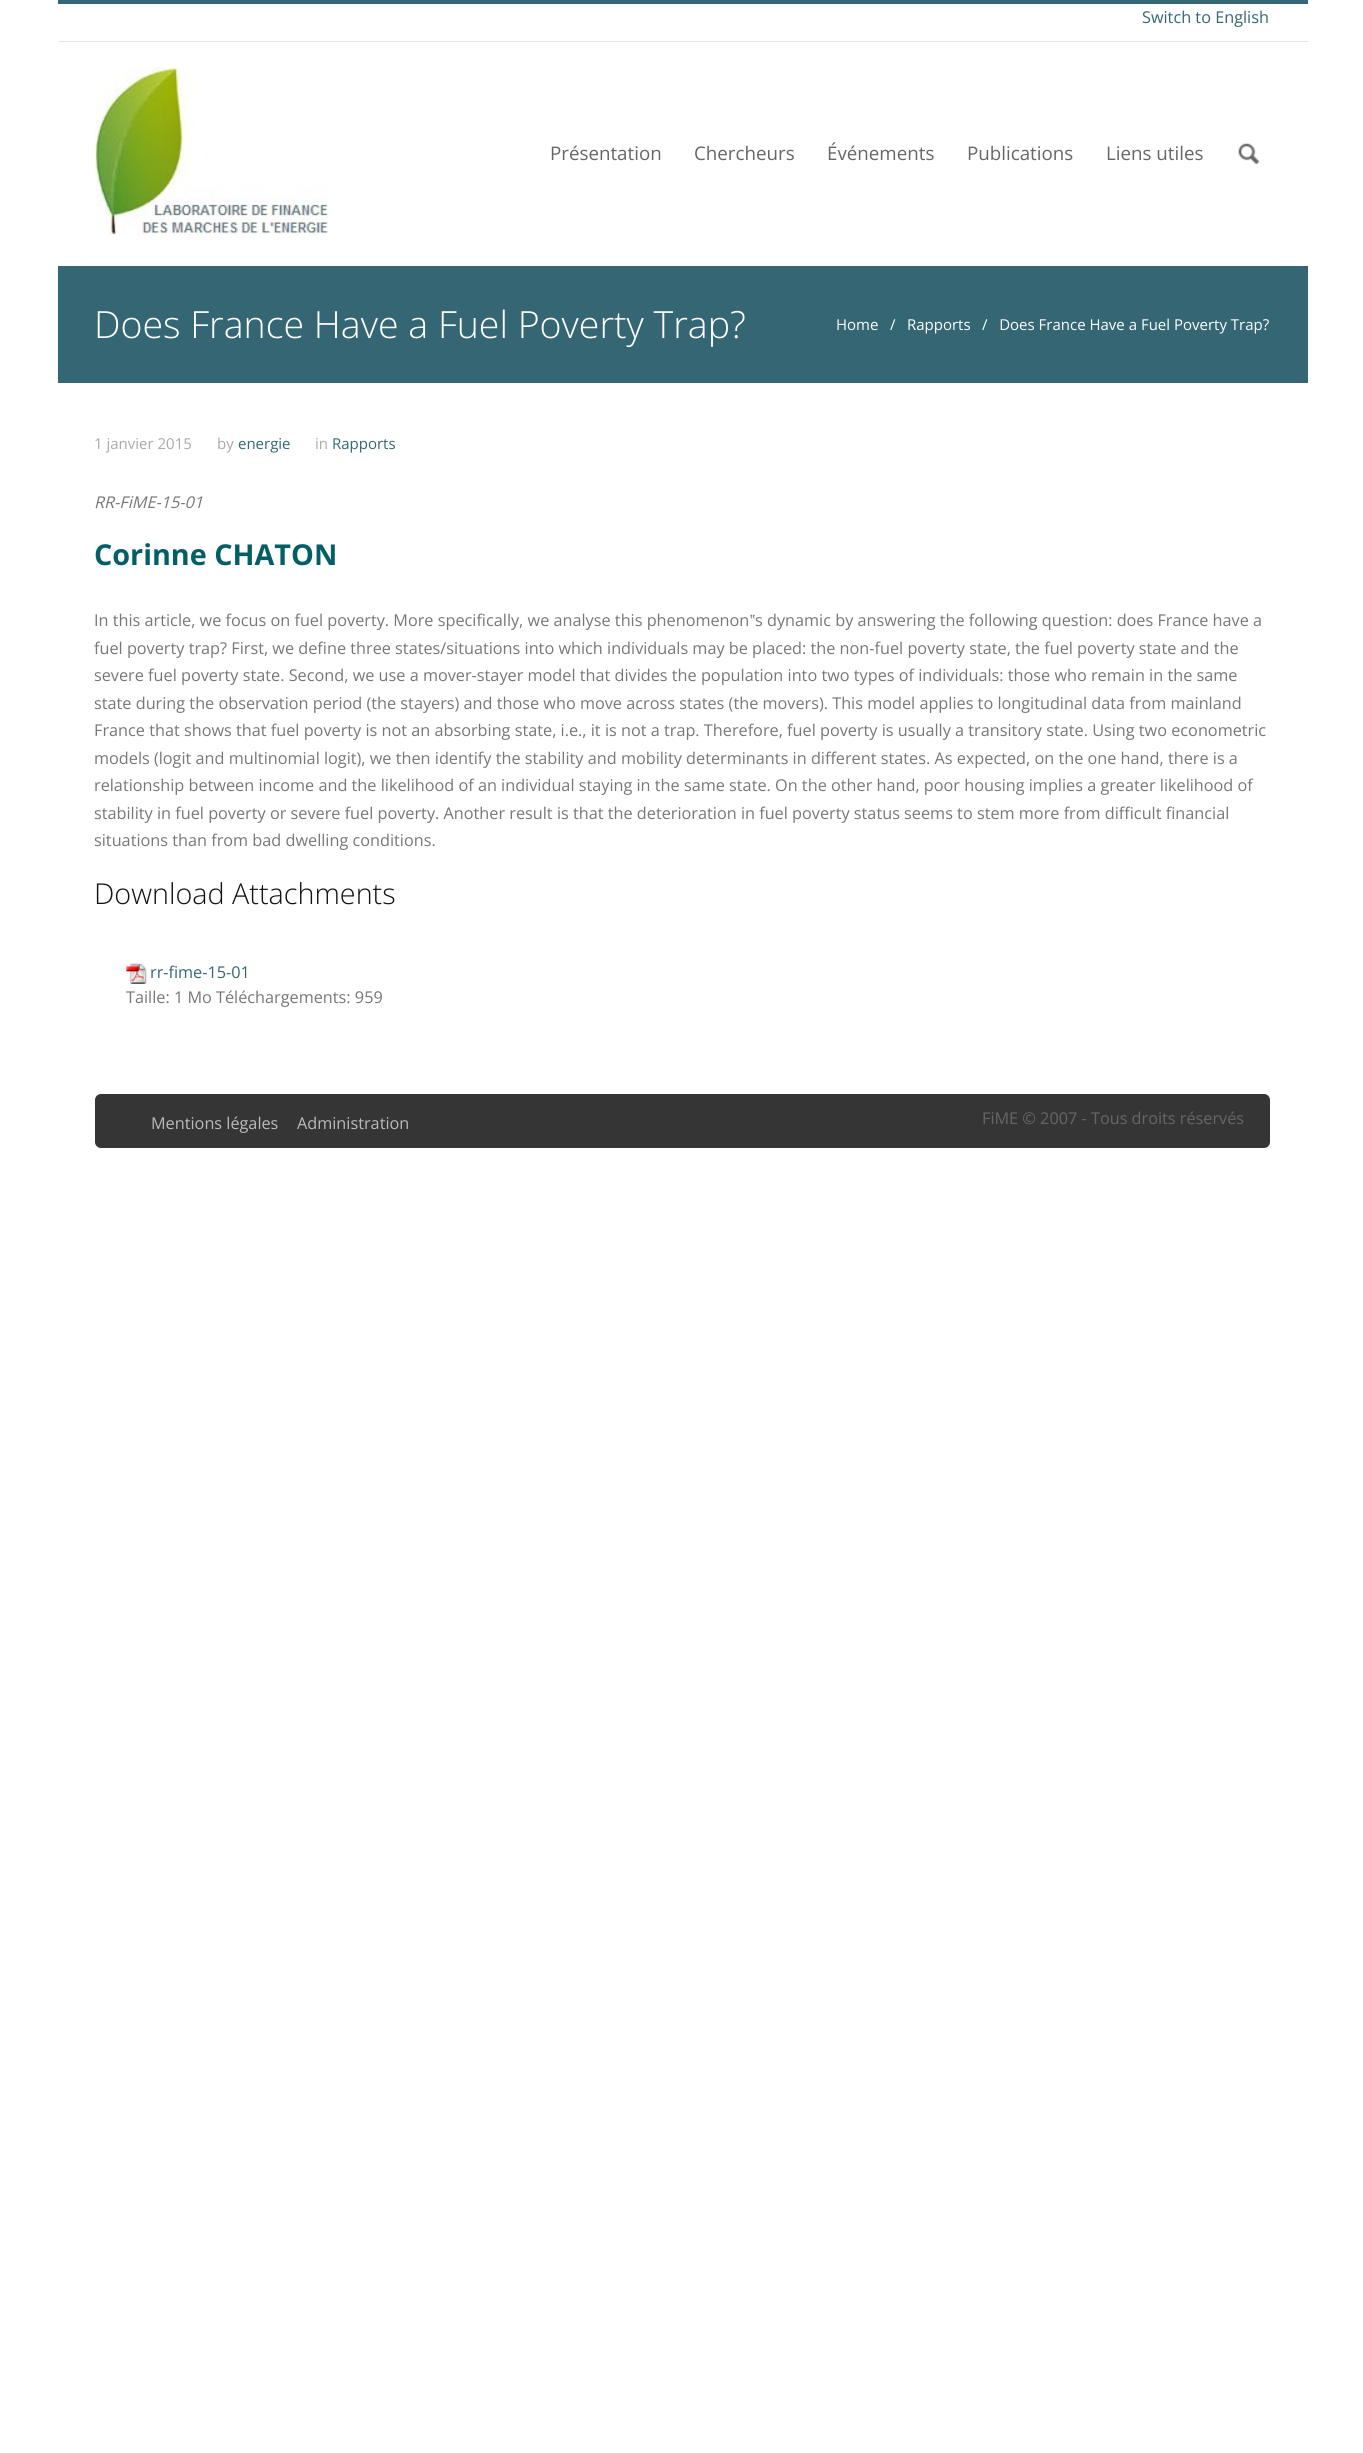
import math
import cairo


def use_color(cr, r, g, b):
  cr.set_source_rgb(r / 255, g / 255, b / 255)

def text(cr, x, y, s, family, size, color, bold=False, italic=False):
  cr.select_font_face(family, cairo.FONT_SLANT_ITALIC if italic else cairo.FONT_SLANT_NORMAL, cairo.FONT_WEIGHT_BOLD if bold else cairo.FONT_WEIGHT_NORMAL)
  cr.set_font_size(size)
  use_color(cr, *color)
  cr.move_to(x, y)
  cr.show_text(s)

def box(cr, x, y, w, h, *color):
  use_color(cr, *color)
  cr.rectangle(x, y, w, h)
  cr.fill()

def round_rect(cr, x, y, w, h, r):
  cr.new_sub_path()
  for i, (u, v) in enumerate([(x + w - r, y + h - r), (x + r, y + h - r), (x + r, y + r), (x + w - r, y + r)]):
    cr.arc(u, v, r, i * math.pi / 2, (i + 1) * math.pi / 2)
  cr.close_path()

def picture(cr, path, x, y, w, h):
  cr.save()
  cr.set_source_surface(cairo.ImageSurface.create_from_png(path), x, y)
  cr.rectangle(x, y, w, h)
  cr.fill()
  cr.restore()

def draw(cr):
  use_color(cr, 255, 255, 255)
  cr.paint()
  box(cr, 58, 0, 1250, 4, 52, 103, 115)
  box(cr, 58, 41, 1250, 1, 229, 229, 229)
  picture(cr, "img_01.png", 95, 67, 234, 168)
  picture(cr, "img_02.png", 1238, 143, 21, 21)
  box(cr, 58, 266, 1250, 117, 52, 103, 115)
  picture(cr, "img_03.png", 126, 963, 21, 21)
  use_color(cr, 53, 53, 53)
  round_rect(cr, 95, 1094, 1175, 54, 6)
  cr.fill()
  text(cr, 1142, 23, "Switch to English", "Open Sans", 16.25, (52, 103, 115))
  text(cr, 550, 160, "Présentation", "Open Sans", 18.75, (102, 102, 102))
  text(cr, 694, 160, "Chercheurs", "Open Sans", 18.75, (102, 102, 102))
  text(cr, 827, 160, "Événements", "Open Sans", 18.75, (102, 102, 102))
  text(cr, 967, 160, "Publications", "Open Sans", 18.75, (102, 102, 102))
  text(cr, 1106, 160, "Liens utiles", "Open Sans", 18.75, (102, 102, 102))
  text(cr, 94, 338, "Does France Have a Fuel Poverty Trap?", "Open Sans Light", 37.5, (255, 255, 255))
  text(cr, 836, 330, "Home", "Open Sans", 15, (255, 255, 255))
  text(cr, 890, 330, "/", "Open Sans", 15, (255, 255, 255))
  text(cr, 907, 330, "Rapports", "Open Sans", 15, (255, 255, 255))
  text(cr, 982, 330, "/   Does France Have a Fuel Poverty Trap?", "Open Sans", 15, (255, 255, 255))
  text(cr, 94, 449, "1 janvier 2015", "Open Sans", 15, (170, 170, 170))
  text(cr, 217, 449, "by", "Open Sans", 15, (170, 170, 170))
  text(cr, 238, 449, "energie", "Open Sans", 15, (52, 103, 115))
  text(cr, 315, 449, "in", "Open Sans", 15, (170, 170, 170))
  text(cr, 332, 449, "Rapports", "Open Sans", 15, (52, 103, 115))
  text(cr, 94, 508, "RR-FiME-15-01", "Open Sans", 16.25, (119, 119, 119), italic=True)
  text(cr, 94, 565, "Corinne CHATON", "Open Sans", 28.75, (3, 95, 101), bold=True)
  text(cr, 94, 626, "In this article, we focus on fuel poverty. More specifically, we analyse this phenomenon", "Open Sans", 16.25, (119, 119, 119))
  text(cr, 750, 626, "‟", "Liberation Sans", 16.25, (119, 119, 119))
  text(cr, 755, 626, "s dynamic by answering the following question: does France have a", "Open Sans", 16.25, (119, 119, 119))
  text(cr, 94, 654, "fuel poverty trap? First, we define three states/situations into which individuals may be placed: the non-fuel poverty state, the fuel poverty state and the", "Open Sans", 16.25, (119, 119, 119))
  text(cr, 94, 681, "severe fuel poverty state. Second, we use a mover-stayer model that divides the population into two types of individuals: those who remain in the same", "Open Sans", 16.25, (119, 119, 119))
  text(cr, 94, 709, "state during the observation period (the stayers) and those who move across states (the movers). This model applies to longitudinal data from mainland", "Open Sans", 16.25, (119, 119, 119))
  text(cr, 94, 736, "France that shows that fuel poverty is not an absorbing state, i.e., it is not a trap. Therefore, fuel poverty is usually a transitory state. Using two econometric", "Open Sans", 16.25, (119, 119, 119))
  text(cr, 94, 764, "models (logit and multinomial logit), we then identify the stability and mobility determinants in different states. As expected, on the one hand, there is a", "Open Sans", 16.25, (119, 119, 119))
  text(cr, 94, 791, "relationship between income and the likelihood of an individual staying in the same state. On the other hand, poor housing implies a greater likelihood of", "Open Sans", 16.25, (119, 119, 119))
  text(cr, 94, 819, "stability in fuel poverty or severe fuel poverty. Another result is that the deterioration in fuel poverty status seems to stem more from difficult financial", "Open Sans", 16.25, (119, 119, 119))
  text(cr, 94, 846, "situations than from bad dwelling conditions.", "Open Sans", 16.25, (119, 119, 119))
  text(cr, 94, 904, "Download Attachments", "Open Sans Light", 28.75, (19, 19, 19))
  text(cr, 150, 978, "rr-fime-15-01", "Open Sans", 16.25, (52, 103, 115))
  text(cr, 126, 1003, "Taille: 1 Mo Téléchargements: 959", "Open Sans", 16.25, (119, 119, 119))
  text(cr, 151, 1129, "Mentions légales", "Open Sans", 16.25, (187, 187, 187))
  text(cr, 297, 1129, "Administration", "Open Sans", 16.25, (187, 187, 187))
  text(cr, 982, 1124, "FiME © 2007 - Tous droits réservés", "Open Sans", 16.25, (102, 102, 102))


surface = cairo.ImageSurface(cairo.FORMAT_RGB24, 1363, 2453)
cr = cairo.Context(surface)
options = cairo.FontOptions()
options.set_hint_metrics(cairo.HINT_METRICS_OFF)
options.set_hint_style(cairo.HINT_STYLE_NONE)
cr.set_font_options(options)
cr.set_miter_limit(4)
draw(cr)
surface.write_to_png("out.png")
